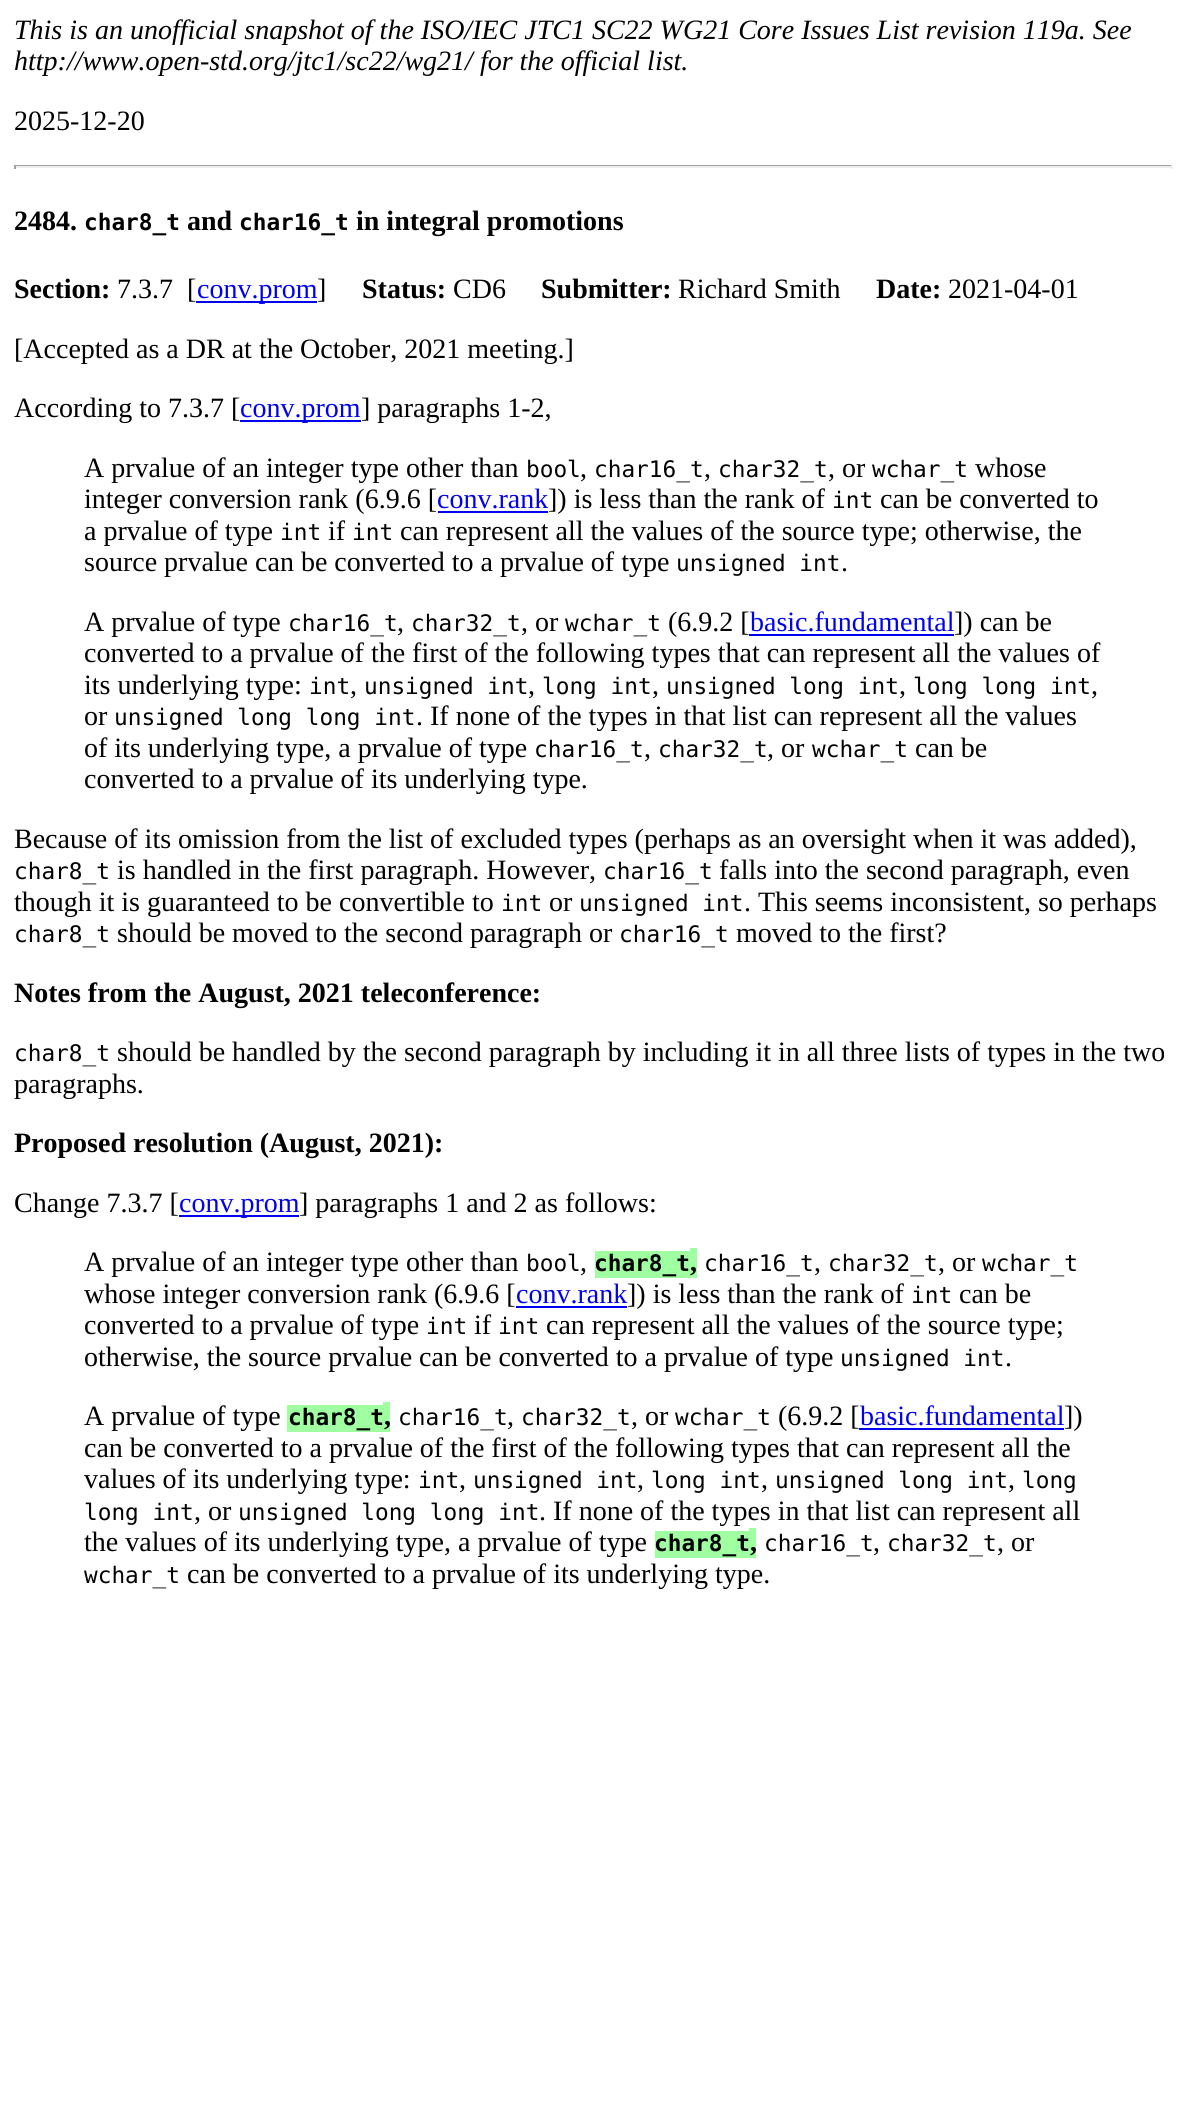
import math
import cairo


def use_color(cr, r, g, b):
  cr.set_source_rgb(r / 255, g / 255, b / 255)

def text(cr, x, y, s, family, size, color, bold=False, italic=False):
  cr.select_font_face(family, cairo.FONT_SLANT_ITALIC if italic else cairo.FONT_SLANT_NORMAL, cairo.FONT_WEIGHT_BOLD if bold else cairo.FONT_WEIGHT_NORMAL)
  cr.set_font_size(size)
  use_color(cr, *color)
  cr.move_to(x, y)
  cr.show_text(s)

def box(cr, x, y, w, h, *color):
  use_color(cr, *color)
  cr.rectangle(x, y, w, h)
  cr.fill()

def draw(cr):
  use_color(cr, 255, 255, 255)
  cr.paint()
  box(cr, 14, 165, 1159, 1, 159, 159, 159)
  box(cr, 1171, 165, 2, 4, 238, 238, 238)
  box(cr, 14, 166, 1159, 2, 238, 238, 238)
  box(cr, 14, 165, 2, 4, 159, 159, 159)
  box(cr, 196, 301, 121, 2, 0, 0, 238)
  box(cr, 240, 420, 121, 2, 0, 0, 238)
  box(cr, 438, 511, 110, 2, 0, 0, 238)
  box(cr, 749, 634, 205, 2, 0, 0, 238)
  box(cr, 179, 1215, 120, 2, 0, 0, 238)
  box(cr, 595, 1251, 95, 27, 160, 255, 160)
  box(cr, 690, 1248, 7, 30, 160, 255, 160)
  box(cr, 516, 1306, 111, 2, 0, 0, 238)
  box(cr, 287, 1405, 96, 27, 160, 255, 160)
  box(cr, 383, 1402, 7, 30, 160, 255, 160)
  box(cr, 859, 1428, 205, 2, 0, 0, 238)
  box(cr, 655, 1531, 94, 27, 160, 255, 160)
  box(cr, 749, 1528, 7, 30, 160, 255, 160)
  text(cr, 14, 39, "This is an unofficial snapshot of the ISO/IEC JTC1 SC22 WG21 Core Issues List revision 119a. See", "Liberation Serif", 28, (0, 0, 0), italic=True)
  text(cr, 14, 70, "http://www.open-std.org/jtc1/sc22/wg21/ for the official list.", "Liberation Serif", 28, (0, 0, 0), italic=True)
  text(cr, 14, 130, "2025-12-20", "Liberation Serif", 28, (0, 0, 0))
  text(cr, 14, 230, "2484.", "Liberation Serif", 28, (0, 0, 0), bold=True)
  text(cr, 84, 230, "char8_t", "DejaVu Sans Mono", 22.75, (0, 0, 0), bold=True)
  text(cr, 187, 230, "and", "Liberation Serif", 28, (0, 0, 0), bold=True)
  text(cr, 239, 230, "char16_t", "DejaVu Sans Mono", 22.75, (0, 0, 0), bold=True)
  text(cr, 356, 230, "in integral promotions", "Liberation Serif", 28, (0, 0, 0), bold=True)
  text(cr, 14, 298, "Section:", "Liberation Serif", 28, (0, 0, 0), bold=True)
  text(cr, 117, 298, "7.3.7  [", "Liberation Serif", 28, (0, 0, 0))
  text(cr, 197, 298, "conv.prom", "Liberation Serif", 28, (0, 0, 238))
  text(cr, 317, 298, "]", "Liberation Serif", 28, (0, 0, 0))
  text(cr, 362, 298, "Status:", "Liberation Serif", 28, (0, 0, 0), bold=True)
  text(cr, 453, 298, "CD6", "Liberation Serif", 28, (0, 0, 0))
  text(cr, 541, 298, "Submitter:", "Liberation Serif", 28, (0, 0, 0), bold=True)
  text(cr, 678, 298, "Richard Smith", "Liberation Serif", 28, (0, 0, 0))
  text(cr, 876, 298, "Date:", "Liberation Serif", 28, (0, 0, 0), bold=True)
  text(cr, 948, 298, "2021-04-01", "Liberation Serif", 28, (0, 0, 0))
  text(cr, 14, 358, "[Accepted as a DR at the October, 2021 meeting.]", "Liberation Serif", 28, (0, 0, 0))
  text(cr, 14, 417, "According to 7.3.7 [", "Liberation Serif", 28, (0, 0, 0))
  text(cr, 240, 417, "conv.prom", "Liberation Serif", 28, (0, 0, 238))
  text(cr, 361, 417, "] paragraphs 1-2,", "Liberation Serif", 28, (0, 0, 0))
  text(cr, 84, 477, "A prvalue of an integer type other than", "Liberation Serif", 28, (0, 0, 0))
  text(cr, 526, 477, "bool", "DejaVu Sans Mono", 22.75, (0, 0, 0))
  text(cr, 580, 477, ",", "Liberation Serif", 28, (0, 0, 0))
  text(cr, 594, 477, "char16_t", "DejaVu Sans Mono", 22.75, (0, 0, 0))
  text(cr, 704, 477, ",", "Liberation Serif", 28, (0, 0, 0))
  text(cr, 718, 477, "char32_t", "DejaVu Sans Mono", 22.75, (0, 0, 0))
  text(cr, 828, 477, ", or", "Liberation Serif", 28, (0, 0, 0))
  text(cr, 872, 477, "wchar_t", "DejaVu Sans Mono", 22.75, (0, 0, 0))
  text(cr, 975, 477, "whose", "Liberation Serif", 28, (0, 0, 0))
  text(cr, 84, 508, "integer conversion rank (6.9.6 [", "Liberation Serif", 28, (0, 0, 0))
  text(cr, 437, 508, "conv.rank", "Liberation Serif", 28, (0, 0, 238))
  text(cr, 548, 508, "]) is less than the rank of", "Liberation Serif", 28, (0, 0, 0))
  text(cr, 832, 508, "int", "DejaVu Sans Mono", 22.75, (0, 0, 0))
  text(cr, 880, 508, "can be converted to", "Liberation Serif", 28, (0, 0, 0))
  text(cr, 84, 540, "a prvalue of type", "Liberation Serif", 28, (0, 0, 0))
  text(cr, 280, 540, "int", "DejaVu Sans Mono", 22.75, (0, 0, 0))
  text(cr, 328, 540, "if", "Liberation Serif", 28, (0, 0, 0))
  text(cr, 352, 540, "int", "DejaVu Sans Mono", 22.75, (0, 0, 0))
  text(cr, 400, 540, "can represent all the values of the source type; otherwise, the", "Liberation Serif", 28, (0, 0, 0))
  text(cr, 84, 571, "source prvalue can be converted to a prvalue of type", "Liberation Serif", 28, (0, 0, 0))
  text(cr, 676, 571, "unsigned int", "DejaVu Sans Mono", 22.75, (0, 0, 0))
  text(cr, 841, 571, ".", "Liberation Serif", 28, (0, 0, 0))
  text(cr, 84, 631, "A prvalue of type", "Liberation Serif", 28, (0, 0, 0))
  text(cr, 288, 631, "char16_t", "DejaVu Sans Mono", 22.75, (0, 0, 0))
  text(cr, 397, 631, ",", "Liberation Serif", 28, (0, 0, 0))
  text(cr, 411, 631, "char32_t", "DejaVu Sans Mono", 22.75, (0, 0, 0))
  text(cr, 521, 631, ", or", "Liberation Serif", 28, (0, 0, 0))
  text(cr, 565, 631, "wchar_t", "DejaVu Sans Mono", 22.75, (0, 0, 0))
  text(cr, 668, 631, "(6.9.2 [", "Liberation Serif", 28, (0, 0, 0))
  text(cr, 750, 631, "basic.fundamental", "Liberation Serif", 28, (0, 0, 238))
  text(cr, 954, 631, "]) can be", "Liberation Serif", 28, (0, 0, 0))
  text(cr, 84, 662, "converted to a prvalue of the first of the following types that can represent all the values of", "Liberation Serif", 28, (0, 0, 0))
  text(cr, 84, 694, "its underlying type:", "Liberation Serif", 28, (0, 0, 0))
  text(cr, 309, 694, "int", "DejaVu Sans Mono", 22.75, (0, 0, 0))
  text(cr, 350, 694, ",", "Liberation Serif", 28, (0, 0, 0))
  text(cr, 364, 694, "unsigned int", "DejaVu Sans Mono", 22.75, (0, 0, 0))
  text(cr, 528, 694, ",", "Liberation Serif", 28, (0, 0, 0))
  text(cr, 542, 694, "long int", "DejaVu Sans Mono", 22.75, (0, 0, 0))
  text(cr, 652, 694, ",", "Liberation Serif", 28, (0, 0, 0))
  text(cr, 666, 694, "unsigned long int", "DejaVu Sans Mono", 22.75, (0, 0, 0))
  text(cr, 899, 694, ",", "Liberation Serif", 28, (0, 0, 0))
  text(cr, 913, 694, "long long int", "DejaVu Sans Mono", 22.75, (0, 0, 0))
  text(cr, 1091, 694, ",", "Liberation Serif", 28, (0, 0, 0))
  text(cr, 84, 725, "or", "Liberation Serif", 28, (0, 0, 0))
  text(cr, 114, 725, "unsigned long long int", "DejaVu Sans Mono", 22.75, (0, 0, 0))
  text(cr, 416, 725, ". If none of the types in that list can represent all the values", "Liberation Serif", 28, (0, 0, 0))
  text(cr, 84, 757, "of its underlying type, a prvalue of type", "Liberation Serif", 28, (0, 0, 0))
  text(cr, 534, 757, "char16_t", "DejaVu Sans Mono", 22.75, (0, 0, 0))
  text(cr, 644, 757, ",", "Liberation Serif", 28, (0, 0, 0))
  text(cr, 658, 757, "char32_t", "DejaVu Sans Mono", 22.75, (0, 0, 0))
  text(cr, 767, 757, ", or", "Liberation Serif", 28, (0, 0, 0))
  text(cr, 812, 757, "wchar_t", "DejaVu Sans Mono", 22.75, (0, 0, 0))
  text(cr, 915, 757, "can be", "Liberation Serif", 28, (0, 0, 0))
  text(cr, 84, 788, "converted to a prvalue of its underlying type.", "Liberation Serif", 28, (0, 0, 0))
  text(cr, 14, 848, "Because of its omission from the list of excluded types (perhaps as an oversight when it was added),", "Liberation Serif", 28, (0, 0, 0))
  text(cr, 14, 879, "char8_t", "DejaVu Sans Mono", 22.75, (0, 0, 0))
  text(cr, 117, 879, "is handled in the first paragraph. However,", "Liberation Serif", 28, (0, 0, 0))
  text(cr, 603, 879, "char16_t", "DejaVu Sans Mono", 22.75, (0, 0, 0))
  text(cr, 719, 879, "falls into the second paragraph, even", "Liberation Serif", 28, (0, 0, 0))
  text(cr, 14, 911, "though it is guaranteed to be convertible to", "Liberation Serif", 28, (0, 0, 0))
  text(cr, 501, 911, "int", "DejaVu Sans Mono", 22.75, (0, 0, 0))
  text(cr, 549, 911, "or", "Liberation Serif", 28, (0, 0, 0))
  text(cr, 579, 911, "unsigned int", "DejaVu Sans Mono", 22.75, (0, 0, 0))
  text(cr, 744, 911, ". This seems inconsistent, so perhaps", "Liberation Serif", 28, (0, 0, 0))
  text(cr, 14, 942, "char8_t", "DejaVu Sans Mono", 22.75, (0, 0, 0))
  text(cr, 117, 942, "should be moved to the second paragraph or", "Liberation Serif", 28, (0, 0, 0))
  text(cr, 619, 942, "char16_t", "DejaVu Sans Mono", 22.75, (0, 0, 0))
  text(cr, 736, 942, "moved to the first?", "Liberation Serif", 28, (0, 0, 0))
  text(cr, 14, 1002, "Notes from the August, 2021 teleconference:", "Liberation Serif", 28, (0, 0, 0), bold=True)
  text(cr, 14, 1061, "char8_t", "DejaVu Sans Mono", 22.75, (0, 0, 0))
  text(cr, 117, 1061, "should be handled by the second paragraph by including it in all three lists of types in the two", "Liberation Serif", 28, (0, 0, 0))
  text(cr, 14, 1093, "paragraphs.", "Liberation Serif", 28, (0, 0, 0))
  text(cr, 14, 1152, "Proposed resolution (August, 2021):", "Liberation Serif", 28, (0, 0, 0), bold=True)
  text(cr, 14, 1212, "Change 7.3.7 [", "Liberation Serif", 28, (0, 0, 0))
  text(cr, 179, 1212, "conv.prom", "Liberation Serif", 28, (0, 0, 238))
  text(cr, 299, 1212, "] paragraphs 1 and 2 as follows:", "Liberation Serif", 28, (0, 0, 0))
  text(cr, 84, 1271, "A prvalue of an integer type other than", "Liberation Serif", 28, (0, 0, 0))
  text(cr, 526, 1271, "bool", "DejaVu Sans Mono", 22.75, (0, 0, 0))
  text(cr, 580, 1271, ",", "Liberation Serif", 28, (0, 0, 0))
  text(cr, 594, 1271, "char8_t", "DejaVu Sans Mono", 22.75, (0, 0, 0), bold=True)
  text(cr, 690, 1271, ",", "Liberation Serif", 28, (0, 0, 0), bold=True)
  text(cr, 704, 1271, "char16_t", "DejaVu Sans Mono", 22.75, (0, 0, 0))
  text(cr, 814, 1271, ",", "Liberation Serif", 28, (0, 0, 0))
  text(cr, 828, 1271, "char32_t", "DejaVu Sans Mono", 22.75, (0, 0, 0))
  text(cr, 938, 1271, ", or", "Liberation Serif", 28, (0, 0, 0))
  text(cr, 982, 1271, "wchar_t", "DejaVu Sans Mono", 22.75, (0, 0, 0))
  text(cr, 84, 1303, "whose integer conversion rank (6.9.6 [", "Liberation Serif", 28, (0, 0, 0))
  text(cr, 516, 1303, "conv.rank", "Liberation Serif", 28, (0, 0, 238))
  text(cr, 627, 1303, "]) is less than the rank of", "Liberation Serif", 28, (0, 0, 0))
  text(cr, 911, 1303, "int", "DejaVu Sans Mono", 22.75, (0, 0, 0))
  text(cr, 959, 1303, "can be", "Liberation Serif", 28, (0, 0, 0))
  text(cr, 84, 1334, "converted to a prvalue of type", "Liberation Serif", 28, (0, 0, 0))
  text(cr, 426, 1334, "int", "DejaVu Sans Mono", 22.75, (0, 0, 0))
  text(cr, 474, 1334, "if", "Liberation Serif", 28, (0, 0, 0))
  text(cr, 498, 1334, "int", "DejaVu Sans Mono", 22.75, (0, 0, 0))
  text(cr, 546, 1334, "can represent all the values of the source type;", "Liberation Serif", 28, (0, 0, 0))
  text(cr, 84, 1366, "otherwise, the source prvalue can be converted to a prvalue of type", "Liberation Serif", 28, (0, 0, 0))
  text(cr, 840, 1366, "unsigned int", "DejaVu Sans Mono", 22.75, (0, 0, 0))
  text(cr, 1005, 1366, ".", "Liberation Serif", 28, (0, 0, 0))
  text(cr, 84, 1425, "A prvalue of type", "Liberation Serif", 28, (0, 0, 0))
  text(cr, 288, 1425, "char8_t", "DejaVu Sans Mono", 22.75, (0, 0, 0), bold=True)
  text(cr, 384, 1425, ",", "Liberation Serif", 28, (0, 0, 0), bold=True)
  text(cr, 398, 1425, "char16_t", "DejaVu Sans Mono", 22.75, (0, 0, 0))
  text(cr, 507, 1425, ",", "Liberation Serif", 28, (0, 0, 0))
  text(cr, 521, 1425, "char32_t", "DejaVu Sans Mono", 22.75, (0, 0, 0))
  text(cr, 631, 1425, ", or", "Liberation Serif", 28, (0, 0, 0))
  text(cr, 675, 1425, "wchar_t", "DejaVu Sans Mono", 22.75, (0, 0, 0))
  text(cr, 778, 1425, "(6.9.2 [", "Liberation Serif", 28, (0, 0, 0))
  text(cr, 860, 1425, "basic.fundamental", "Liberation Serif", 28, (0, 0, 238))
  text(cr, 1064, 1425, "])", "Liberation Serif", 28, (0, 0, 0))
  text(cr, 84, 1457, "can be converted to a prvalue of the first of the following types that can represent all the", "Liberation Serif", 28, (0, 0, 0))
  text(cr, 84, 1488, "values of its underlying type:", "Liberation Serif", 28, (0, 0, 0))
  text(cr, 418, 1488, "int", "DejaVu Sans Mono", 22.75, (0, 0, 0))
  text(cr, 459, 1488, ",", "Liberation Serif", 28, (0, 0, 0))
  text(cr, 473, 1488, "unsigned int", "DejaVu Sans Mono", 22.75, (0, 0, 0))
  text(cr, 637, 1488, ",", "Liberation Serif", 28, (0, 0, 0))
  text(cr, 651, 1488, "long int", "DejaVu Sans Mono", 22.75, (0, 0, 0))
  text(cr, 761, 1488, ",", "Liberation Serif", 28, (0, 0, 0))
  text(cr, 775, 1488, "unsigned long int", "DejaVu Sans Mono", 22.75, (0, 0, 0))
  text(cr, 1008, 1488, ",", "Liberation Serif", 28, (0, 0, 0))
  text(cr, 1022, 1488, "long", "DejaVu Sans Mono", 22.75, (0, 0, 0))
  text(cr, 84, 1520, "long int", "DejaVu Sans Mono", 22.75, (0, 0, 0))
  text(cr, 194, 1520, ", or", "Liberation Serif", 28, (0, 0, 0))
  text(cr, 238, 1520, "unsigned long long int", "DejaVu Sans Mono", 22.75, (0, 0, 0))
  text(cr, 539, 1520, ". If none of the types in that list can represent all", "Liberation Serif", 28, (0, 0, 0))
  text(cr, 84, 1551, "the values of its underlying type, a prvalue of type", "Liberation Serif", 28, (0, 0, 0))
  text(cr, 654, 1551, "char8_t", "DejaVu Sans Mono", 22.75, (0, 0, 0), bold=True)
  text(cr, 750, 1551, ",", "Liberation Serif", 28, (0, 0, 0), bold=True)
  text(cr, 764, 1551, "char16_t", "DejaVu Sans Mono", 22.75, (0, 0, 0))
  text(cr, 873, 1551, ",", "Liberation Serif", 28, (0, 0, 0))
  text(cr, 887, 1551, "char32_t", "DejaVu Sans Mono", 22.75, (0, 0, 0))
  text(cr, 997, 1551, ", or", "Liberation Serif", 28, (0, 0, 0))
  text(cr, 84, 1583, "wchar_t", "DejaVu Sans Mono", 22.75, (0, 0, 0))
  text(cr, 187, 1583, "can be converted to a prvalue of its underlying type.", "Liberation Serif", 28, (0, 0, 0))


surface = cairo.ImageSurface(cairo.FORMAT_RGB24, 1185, 2114)
cr = cairo.Context(surface)
options = cairo.FontOptions()
options.set_hint_metrics(cairo.HINT_METRICS_OFF)
options.set_hint_style(cairo.HINT_STYLE_NONE)
cr.set_font_options(options)
cr.set_miter_limit(4)
draw(cr)
surface.write_to_png("out.png")
